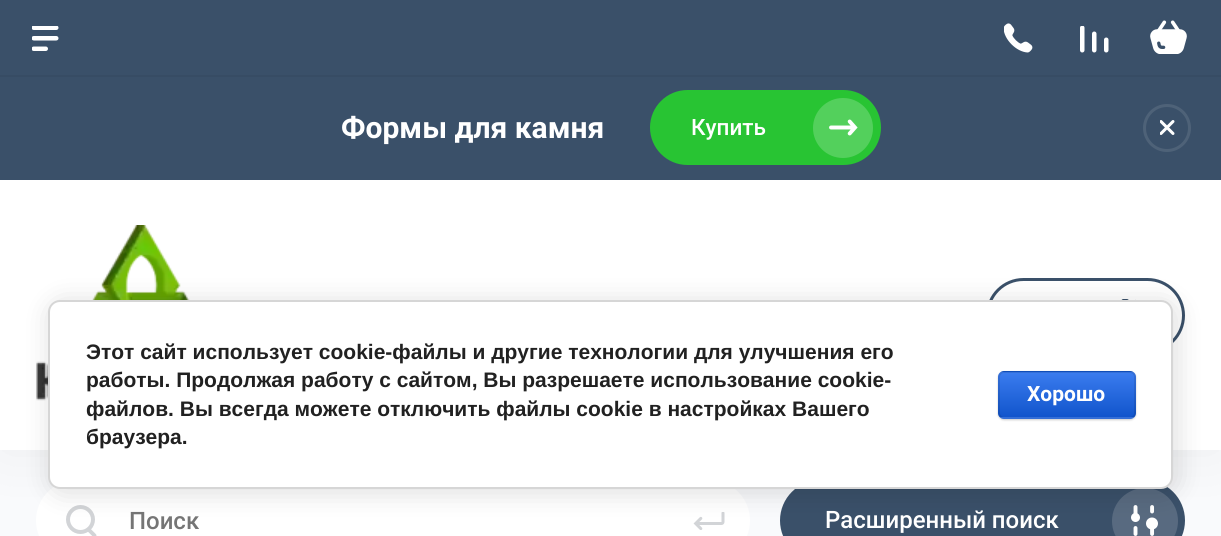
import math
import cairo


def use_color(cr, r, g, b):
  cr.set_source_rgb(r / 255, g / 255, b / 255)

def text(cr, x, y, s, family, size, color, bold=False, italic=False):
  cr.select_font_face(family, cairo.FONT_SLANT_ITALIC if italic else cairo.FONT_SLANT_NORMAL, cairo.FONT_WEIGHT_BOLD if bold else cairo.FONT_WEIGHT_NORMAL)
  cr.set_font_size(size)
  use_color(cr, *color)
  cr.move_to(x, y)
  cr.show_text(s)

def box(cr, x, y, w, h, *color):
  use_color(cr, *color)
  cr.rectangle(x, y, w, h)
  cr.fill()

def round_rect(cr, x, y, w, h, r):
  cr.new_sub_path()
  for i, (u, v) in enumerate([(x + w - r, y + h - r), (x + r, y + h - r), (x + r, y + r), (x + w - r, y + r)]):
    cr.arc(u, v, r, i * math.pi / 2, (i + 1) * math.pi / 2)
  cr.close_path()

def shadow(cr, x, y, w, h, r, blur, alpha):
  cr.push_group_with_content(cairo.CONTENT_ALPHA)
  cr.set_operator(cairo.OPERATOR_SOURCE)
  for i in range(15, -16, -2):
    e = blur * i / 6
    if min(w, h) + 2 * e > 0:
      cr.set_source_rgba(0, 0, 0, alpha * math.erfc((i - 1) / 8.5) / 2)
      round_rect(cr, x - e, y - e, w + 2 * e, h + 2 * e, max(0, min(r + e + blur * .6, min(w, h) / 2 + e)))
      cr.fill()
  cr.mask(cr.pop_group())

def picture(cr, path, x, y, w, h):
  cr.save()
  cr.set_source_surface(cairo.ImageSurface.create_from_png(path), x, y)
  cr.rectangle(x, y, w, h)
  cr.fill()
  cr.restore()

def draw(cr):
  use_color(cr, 249, 250, 252)
  cr.paint()
  box(cr, 0, 75, 1221, 2, 55, 76, 100)
  box(cr, 0, 0, 1221, 75, 58, 80, 105)
  picture(cr, "img_01.png", 32, 26, 27, 25)
  picture(cr, "img_02.png", 1004, 23, 29, 30)
  picture(cr, "img_03.png", 1080, 26, 29, 27)
  picture(cr, "img_04.png", 1150, 20, 37, 34)
  use_color(cr, 0, 0, 0)
  shadow(cr, 0, 182, 1221, 270, 0, 30, 0.05)
  box(cr, 0, 180, 1221, 270, 255, 255, 255)
  picture(cr, "img_05.png", 36, 225, 154, 176)
  round_rect(cr, 987.5, 279.5, 196, 72, 36)
  use_color(cr, 58, 80, 105)
  cr.set_line_width(3)
  cr.stroke()
  picture(cr, "img_06.png", 1121, 299, 15, 1)
  box(cr, 0, 77, 1221, 103, 58, 80, 105)
  use_color(cr, 40, 196, 51)
  round_rect(cr, 650, 90, 231, 75, 37.5)
  cr.fill()
  use_color(cr, 83, 208, 92)
  cr.arc(843, 128, 30, 0, 2 * math.pi)
  cr.fill()
  picture(cr, "img_07.png", 829, 119, 29, 17)
  cr.arc(1167, 128, 22.5, 0, 2 * math.pi)
  use_color(cr, 78, 98, 120)
  cr.stroke()
  picture(cr, "img_08.png", 1160, 120, 15, 15)
  use_color(cr, 255, 255, 255)
  round_rect(cr, 36, 480, 714, 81, 40.5)
  cr.fill()
  cr.arc(80.5, 519.5, 12.5, 0, 2 * math.pi)
  use_color(cr, 210, 212, 215)
  cr.set_line_width(4)
  cr.stroke()
  cr.new_path()
  cr.move_to(88.5, 529.5)
  cr.line_to(94.5, 535.5)
  cr.set_line_width(3.9)
  cr.set_line_cap(cairo.LINE_CAP_ROUND)
  cr.stroke()
  picture(cr, "img_09.png", 693, 512, 32, 18)
  use_color(cr, 58, 80, 105)
  round_rect(cr, 780, 480, 405, 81, 40.5)
  cr.fill()
  use_color(cr, 88, 106, 128)
  cr.arc(1145, 521, 33, 0, 2 * math.pi)
  cr.fill()
  picture(cr, "img_10.png", 1131, 505, 27, 31)
  use_color(cr, 0, 0, 0)
  shadow(cr, 51, 303, 1125, 189, 12, 13.5, 0.14)
  use_color(cr, 255, 255, 255)
  round_rect(cr, 49, 301, 1123, 187, 11)
  cr.fill_preserve()
  use_color(cr, 214, 214, 214)
  cr.set_line_width(2)
  cr.set_line_cap(cairo.LINE_CAP_BUTT)
  cr.stroke()
  use_color(cr, 0, 0, 0)
  shadow(cr, 998, 372, 138, 48, 6, 1, 0.2)
  cr.save()
  round_rect(cr, 998, 371, 138, 48, 6)
  cr.clip()
  gradient = cairo.LinearGradient(1067, 327, 1067, 372)
  gradient.add_color_stop_rgba(0, 0.231, 0.486, 0.937, 1)
  gradient.add_color_stop_rgba(1, 0.067, 0.333, 0.8, 1)
  cr.set_source(gradient)
  cr.rectangle(998, 371, 138, 1)
  cr.fill()
  gradient = cairo.LinearGradient(1067, 372, 1067, 417)
  gradient.add_color_stop_rgba(0, 0.231, 0.486, 0.937, 1)
  gradient.add_color_stop_rgba(1, 0.067, 0.333, 0.8, 1)
  cr.set_source(gradient)
  cr.rectangle(998, 372, 138, 45)
  cr.fill()
  gradient = cairo.LinearGradient(1067, 417, 1067, 462)
  gradient.add_color_stop_rgba(0, 0.231, 0.486, 0.937, 1)
  gradient.add_color_stop_rgba(1, 0.067, 0.333, 0.8, 1)
  cr.set_source(gradient)
  cr.rectangle(998, 417, 138, 2)
  cr.fill()
  cr.restore()
  round_rect(cr, 999, 372, 136, 46, 5)
  cr.set_source_rgba(0, 0, 0, 0.1)
  cr.stroke()
  text(cr, 341, 138, "Формы для камня", "Roboto", 30, (255, 255, 255), bold=True)
  text(cr, 691, 135, "Купить", "Roboto Medium", 22.5, (255, 255, 255))
  text(cr, 129, 529, "Поиск", "Roboto Medium", 24, (117, 117, 117))
  text(cr, 825, 528, "Расширенный поиск", "Roboto Medium", 24, (255, 255, 255))
  text(cr, 86, 359, "Этот сайт использует cookie-файлы и другие технологии для улучшения его", "Liberation Sans", 21, (33, 33, 33), bold=True)
  text(cr, 86, 387, "работы. Продолжая работу с сайтом, Вы разрешаете использование cookie-", "Liberation Sans", 21, (33, 33, 33), bold=True)
  text(cr, 86, 416, "файлов. Вы всегда можете отключить файлы cookie в настройках Вашего", "Liberation Sans", 21, (33, 33, 33), bold=True)
  text(cr, 86, 444, "браузера.", "Liberation Sans", 21, (33, 33, 33), bold=True)
  text(cr, 1027, 401, "Хорошо", "Roboto", 21, (255, 255, 255), bold=True)


surface = cairo.ImageSurface(cairo.FORMAT_RGB24, 1221, 536)
cr = cairo.Context(surface)
options = cairo.FontOptions()
options.set_hint_metrics(cairo.HINT_METRICS_OFF)
options.set_hint_style(cairo.HINT_STYLE_NONE)
cr.set_font_options(options)
cr.set_miter_limit(4)
draw(cr)
surface.write_to_png("out.png")
